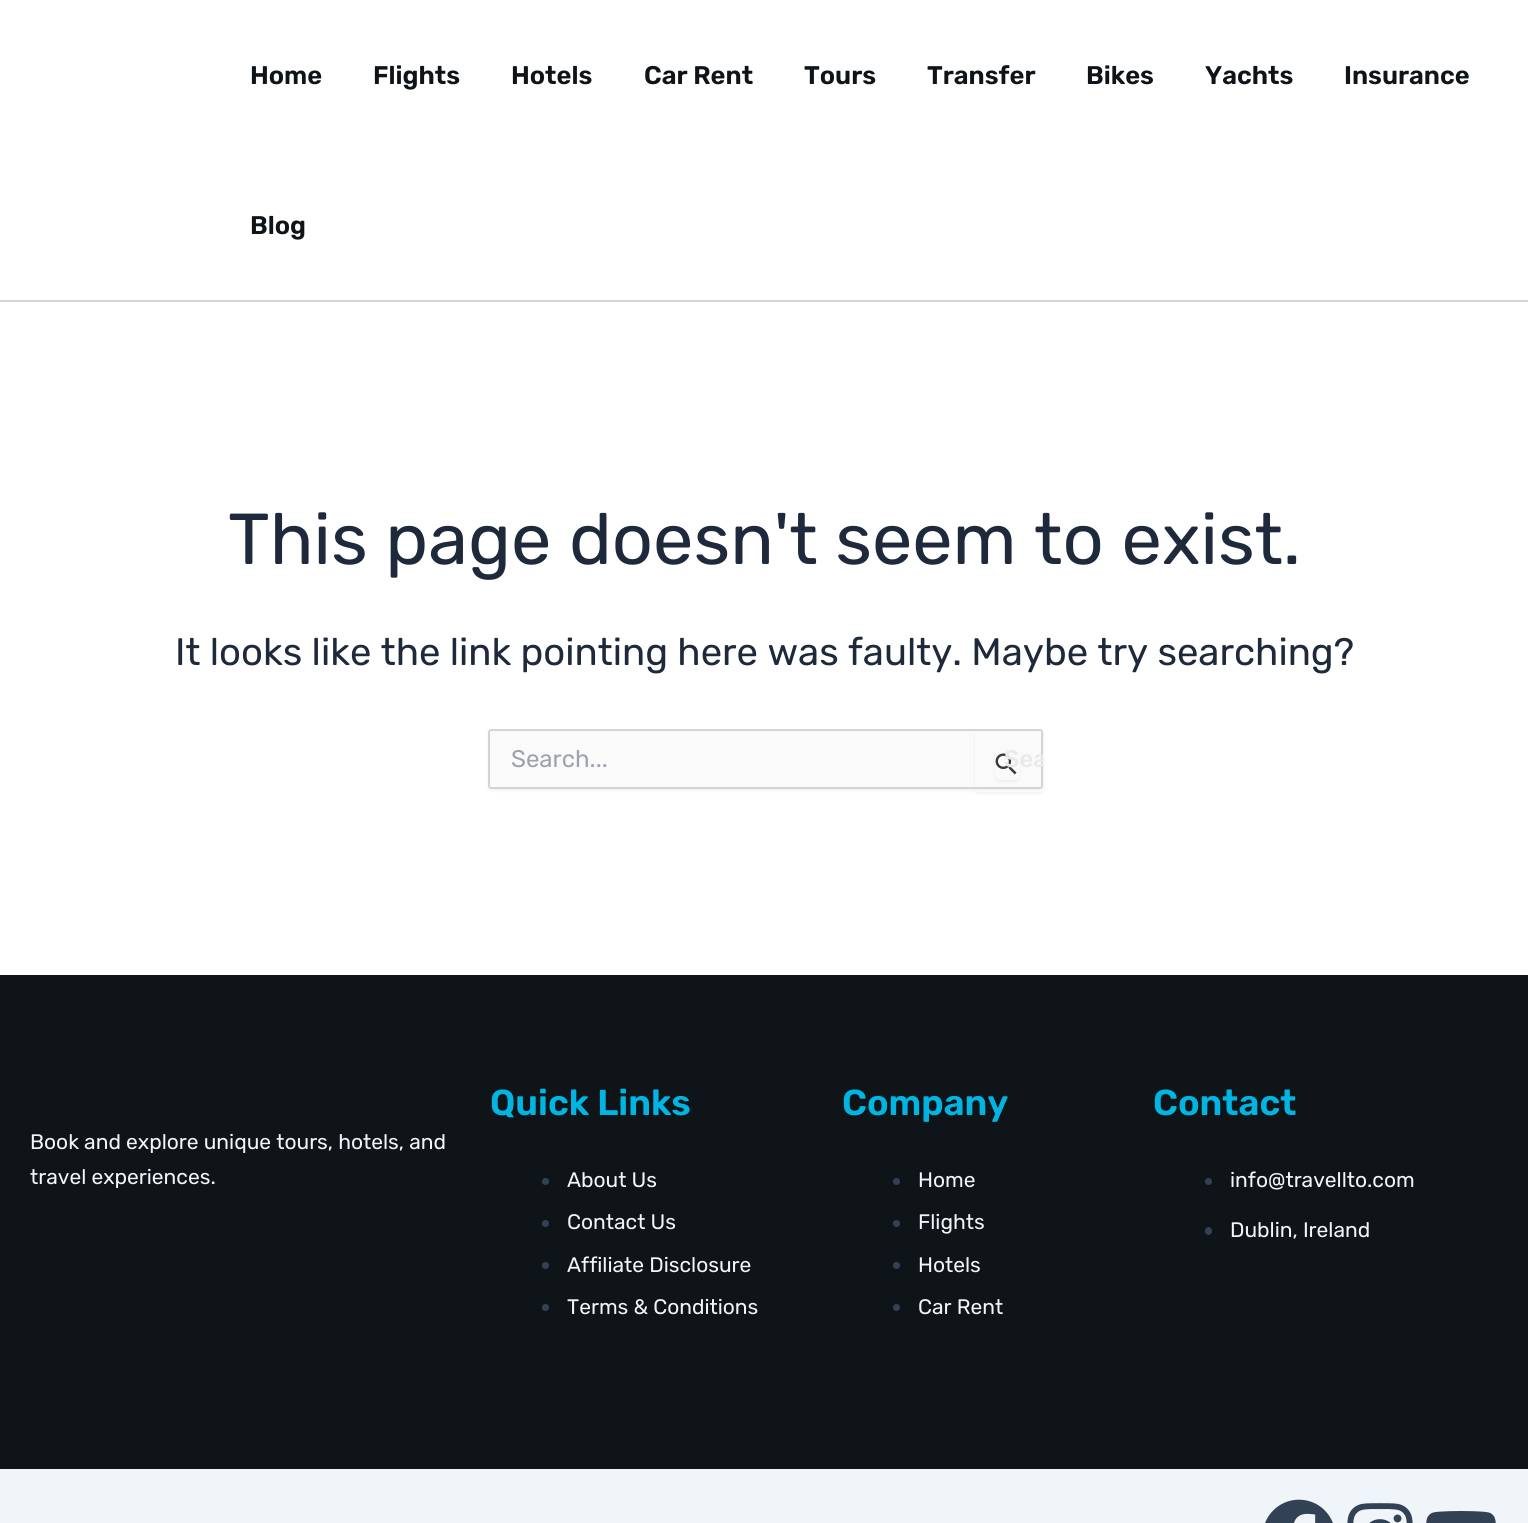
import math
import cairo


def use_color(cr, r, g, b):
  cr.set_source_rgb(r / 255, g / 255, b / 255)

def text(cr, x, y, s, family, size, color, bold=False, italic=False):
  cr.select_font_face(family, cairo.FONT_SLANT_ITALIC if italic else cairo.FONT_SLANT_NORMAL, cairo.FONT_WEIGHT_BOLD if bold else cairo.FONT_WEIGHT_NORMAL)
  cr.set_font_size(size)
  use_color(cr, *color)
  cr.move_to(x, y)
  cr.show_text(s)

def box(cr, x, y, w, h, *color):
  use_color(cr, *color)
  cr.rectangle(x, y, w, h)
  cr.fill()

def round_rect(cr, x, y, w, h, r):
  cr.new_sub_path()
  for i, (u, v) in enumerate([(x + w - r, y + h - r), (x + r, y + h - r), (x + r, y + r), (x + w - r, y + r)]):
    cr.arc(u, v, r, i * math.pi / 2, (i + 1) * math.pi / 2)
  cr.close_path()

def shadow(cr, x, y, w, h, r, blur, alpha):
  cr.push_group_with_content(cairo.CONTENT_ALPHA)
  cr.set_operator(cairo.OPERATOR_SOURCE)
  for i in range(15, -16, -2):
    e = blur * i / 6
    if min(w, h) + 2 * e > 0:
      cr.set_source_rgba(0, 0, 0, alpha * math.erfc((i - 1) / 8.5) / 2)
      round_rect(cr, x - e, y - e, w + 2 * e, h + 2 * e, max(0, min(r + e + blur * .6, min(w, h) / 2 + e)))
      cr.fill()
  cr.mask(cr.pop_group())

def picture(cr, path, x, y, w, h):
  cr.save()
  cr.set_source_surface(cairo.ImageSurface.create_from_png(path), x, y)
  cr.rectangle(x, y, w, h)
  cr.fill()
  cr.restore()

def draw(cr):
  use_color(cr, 255, 255, 255)
  cr.paint()
  box(cr, 0, 300, 1528, 2, 209, 213, 219)
  use_color(cr, 0, 0, 0)
  shadow(cr, 488, 731, 555, 60, 3, 1.5, 0.05)
  use_color(cr, 250, 250, 250)
  round_rect(cr, 489, 730, 553, 58, 2)
  cr.fill_preserve()
  use_color(cr, 209, 213, 219)
  cr.stroke()
  cr.save()
  cr.set_fill_rule(cairo.FILL_RULE_EVEN_ODD)
  cr.new_path()
  cr.move_to(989, 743)
  cr.line_to(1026, 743)
  cr.line_to(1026, 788)
  cr.line_to(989, 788)
  cr.close_path()
  cr.move_to(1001, 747)
  cr.line_to(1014, 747)
  cr.curve_to(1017.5, 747, 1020, 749.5, 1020, 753)
  cr.line_to(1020, 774)
  cr.curve_to(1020, 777.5, 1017.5, 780, 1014, 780)
  cr.line_to(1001, 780)
  cr.curve_to(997.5, 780, 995, 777.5, 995, 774)
  cr.line_to(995, 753)
  cr.curve_to(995, 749.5, 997.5, 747, 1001, 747)
  cr.close_path()
  cr.clip()
  use_color(cr, 0, 0, 0)
  shadow(cr, 995, 749, 25, 33, 6, 1.5, 0.05)
  cr.restore()
  picture(cr, "img_01.png", 995, 753, 22, 22)
  cr.save()
  cr.set_fill_rule(cairo.FILL_RULE_EVEN_ODD)
  cr.new_path()
  cr.move_to(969, 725)
  cr.line_to(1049, 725)
  cr.line_to(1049, 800)
  cr.line_to(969, 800)
  cr.close_path()
  cr.move_to(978, 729)
  cr.line_to(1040, 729)
  cr.curve_to(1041.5, 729, 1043, 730.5, 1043, 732)
  cr.line_to(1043, 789)
  cr.curve_to(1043, 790.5, 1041.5, 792, 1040, 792)
  cr.line_to(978, 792)
  cr.curve_to(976.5, 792, 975, 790.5, 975, 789)
  cr.line_to(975, 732)
  cr.curve_to(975, 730.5, 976.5, 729, 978, 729)
  cr.close_path()
  cr.clip()
  use_color(cr, 0, 0, 0)
  shadow(cr, 975, 731, 68, 63, 3, 1.5, 0.05)
  cr.restore()
  box(cr, 0, 975, 1528, 494, 15, 20, 25)
  use_color(cr, 51, 65, 85)
  cr.arc(545.5, 1181.5, 3.5, 0, 2 * math.pi)
  cr.fill()
  cr.arc(545.5, 1223.5, 3.5, 0, 2 * math.pi)
  cr.fill()
  cr.arc(545.5, 1265.5, 3.5, 0, 2 * math.pi)
  cr.fill()
  cr.arc(545.5, 1307.5, 3.5, 0, 2 * math.pi)
  cr.fill()
  cr.arc(896.5, 1181.5, 3.5, 0, 2 * math.pi)
  cr.fill()
  cr.arc(896.5, 1223.5, 3.5, 0, 2 * math.pi)
  cr.fill()
  cr.arc(896.5, 1265.5, 3.5, 0, 2 * math.pi)
  cr.fill()
  cr.arc(896.5, 1307.5, 3.5, 0, 2 * math.pi)
  cr.fill()
  cr.arc(1208.5, 1181.5, 3.5, 0, 2 * math.pi)
  cr.fill()
  round_rect(cr, 1205, 1227, 7, 8, 3.5)
  cr.fill()
  box(cr, 0, 1469, 1528, 54, 240, 245, 250)
  picture(cr, "img_02.png", 1265, 1499, 68, 24)
  picture(cr, "img_03.png", 1347, 1503, 66, 20)
  picture(cr, "img_04.png", 1426, 1511, 70, 12)
  text(cr, 250, 84, "Home", "Rubik SemiBold", 25.5, (15, 20, 25))
  text(cr, 373, 84, "Flights", "Rubik SemiBold", 25.5, (15, 20, 25))
  text(cr, 511, 84, "Hotels", "Rubik SemiBold", 25.5, (15, 20, 25))
  text(cr, 644, 84, "Car Rent", "Rubik SemiBold", 25.5, (15, 20, 25))
  text(cr, 804, 84, "Tours", "Rubik SemiBold", 25.5, (15, 20, 25))
  text(cr, 927, 84, "Transfer", "Rubik SemiBold", 25.5, (15, 20, 25))
  text(cr, 1086, 84, "Bikes", "Rubik SemiBold", 25.5, (15, 20, 25))
  text(cr, 1205, 84, "Yachts", "Rubik SemiBold", 25.5, (15, 20, 25))
  text(cr, 1344, 84, "Insurance", "Rubik SemiBold", 25.5, (15, 20, 25))
  text(cr, 250, 234, "Blog", "Rubik SemiBold", 25.5, (15, 20, 25))
  text(cr, 228, 564, "This page doesn't seem to exist.", "Rubik", 72, (30, 41, 59))
  text(cr, 175, 665, "It looks like the link pointing here was faulty. Maybe try searching?", "Rubik", 38.25, (30, 41, 59))
  text(cr, 511, 767, "Search...", "Rubik", 24, (156, 163, 175))
  cr.save()
  round_rect(cr, 975, 729, 68, 63, 3)
  cr.clip()
  text(cr, 1004, 767, "Sea", "Rubik Medium", 24, (233, 233, 233))
  cr.restore()
  text(cr, 30, 1149, "Book and explore unique tours, hotels, and", "Rubik", 21, (240, 245, 250))
  text(cr, 30, 1184, "travel experiences.", "Rubik", 21, (240, 245, 250))
  text(cr, 490, 1115, "Quick Links", "Rubik SemiBold", 36, (0, 181, 226))
  text(cr, 567, 1187, "About Us", "Rubik", 21, (240, 245, 250))
  text(cr, 567, 1229, "Contact Us", "Rubik", 21, (240, 245, 250))
  text(cr, 567, 1272, "Affiliate Disclosure", "Rubik", 21, (240, 245, 250))
  text(cr, 567, 1314, "Terms & Conditions", "Rubik", 21, (240, 245, 250))
  text(cr, 842, 1115, "Company", "Rubik SemiBold", 36, (0, 181, 226))
  text(cr, 918, 1187, "Home", "Rubik", 21, (240, 245, 250))
  text(cr, 918, 1229, "Flights", "Rubik", 21, (240, 245, 250))
  text(cr, 918, 1272, "Hotels", "Rubik", 21, (240, 245, 250))
  text(cr, 918, 1314, "Car Rent", "Rubik", 21, (240, 245, 250))
  text(cr, 1153, 1115, "Contact", "Rubik SemiBold", 36, (0, 181, 226))
  text(cr, 1230, 1187, "info@travellto.com", "Rubik", 21, (240, 245, 250))
  text(cr, 1230, 1237, "Dublin, Ireland", "Rubik", 21, (240, 245, 250))


surface = cairo.ImageSurface(cairo.FORMAT_RGB24, 1528, 1523)
cr = cairo.Context(surface)
options = cairo.FontOptions()
options.set_hint_metrics(cairo.HINT_METRICS_OFF)
options.set_hint_style(cairo.HINT_STYLE_NONE)
cr.set_font_options(options)
cr.set_miter_limit(4)
draw(cr)
surface.write_to_png("out.png")
